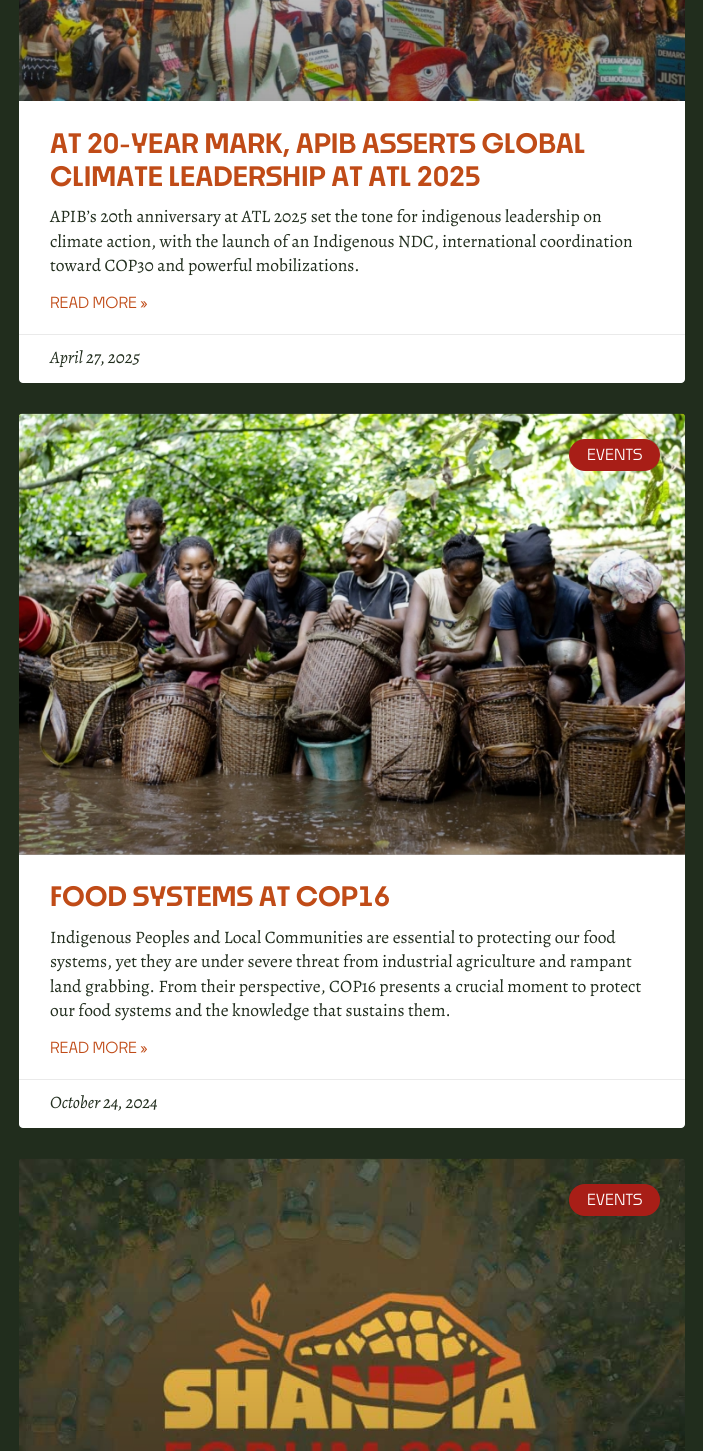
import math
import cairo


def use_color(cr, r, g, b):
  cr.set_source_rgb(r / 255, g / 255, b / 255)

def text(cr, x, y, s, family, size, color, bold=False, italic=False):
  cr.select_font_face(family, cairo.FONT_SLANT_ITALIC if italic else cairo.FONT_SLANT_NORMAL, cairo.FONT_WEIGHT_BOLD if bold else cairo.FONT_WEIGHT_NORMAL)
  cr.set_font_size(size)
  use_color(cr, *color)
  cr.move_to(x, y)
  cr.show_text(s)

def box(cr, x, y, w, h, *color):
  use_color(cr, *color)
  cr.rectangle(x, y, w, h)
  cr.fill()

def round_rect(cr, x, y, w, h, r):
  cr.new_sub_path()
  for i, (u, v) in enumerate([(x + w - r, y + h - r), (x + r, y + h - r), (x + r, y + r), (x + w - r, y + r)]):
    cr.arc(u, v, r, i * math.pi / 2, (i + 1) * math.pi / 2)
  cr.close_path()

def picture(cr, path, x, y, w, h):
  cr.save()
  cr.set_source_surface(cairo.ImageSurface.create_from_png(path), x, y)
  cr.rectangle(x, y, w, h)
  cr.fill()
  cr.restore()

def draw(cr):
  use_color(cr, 33, 45, 29)
  cr.paint()
  use_color(cr, 255, 255, 255)
  round_rect(cr, 19, -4, 666, 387, 4)
  cr.fill()
  picture(cr, "img_01.png", 19, 0, 666, 101)
  box(cr, 19, 334, 666, 1, 234, 234, 234)
  use_color(cr, 255, 255, 255)
  round_rect(cr, 19, 414, 666, 714, 4)
  cr.fill()
  picture(cr, "img_02.png", 19, 413, 666, 442)
  gradient = cairo.LinearGradient(352, 855, 352, 414)
  gradient.add_color_stop_rgba(0, 0, 0, 0, 0.35)
  gradient.add_color_stop_rgba(0.75, 0, 0, 0, 0)
  cr.set_source(gradient)
  cr.rectangle(19, 545, 666, 310)
  cr.fill()
  use_color(cr, 168, 30, 23)
  round_rect(cr, 569, 439, 91, 32, 16)
  cr.fill()
  box(cr, 19, 1079, 666, 1, 234, 234, 234)
  picture(cr, "img_03.png", 19, 1158, 666, 293)
  gradient = cairo.LinearGradient(352, 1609, 352, 1159)
  gradient.add_color_stop_rgba(0, 0, 0, 0, 0.35)
  gradient.add_color_stop_rgba(0.75, 0, 0, 0, 0)
  cr.set_source(gradient)
  cr.rectangle(19, 1292, 666, 159)
  cr.fill()
  use_color(cr, 168, 30, 23)
  round_rect(cr, 569, 1184, 91, 32, 16)
  cr.fill()
  text(cr, 50, 153, "AT 20-YEAR MARK, APIB ASSERTS GLOBAL", "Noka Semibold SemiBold", 26.25, (192, 75, 23))
  text(cr, 50, 186, "CLIMATE LEADERSHIP AT ATL 2025", "Noka Semibold SemiBold", 26.25, (192, 75, 23))
  text(cr, 50, 222, "APIB’s 20th anniversary at ATL 2025 set the tone for indigenous leadership on", "Alegreya", 17.5, (33, 45, 29))
  text(cr, 50, 247, "climate action, with the launch of an Indigenous NDC, international coordination", "Alegreya", 17.5, (33, 45, 29))
  text(cr, 50, 271, "toward COP30 and powerful mobilizations.", "Alegreya", 17.5, (33, 45, 29))
  text(cr, 50, 308, "READ MORE »", "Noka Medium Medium", 15, (192, 75, 23))
  text(cr, 50, 363, "April 27, 2025", "Alegreya", 17.5, (33, 45, 29), italic=True)
  text(cr, 587, 460, "EVENTS", "Noka Medium Medium", 15, (255, 255, 255))
  text(cr, 50, 906, "FOOD SYSTEMS AT COP16", "Noka Semibold SemiBold", 26.25, (192, 75, 23))
  text(cr, 50, 943, "Indigenous Peoples and Local Communities are essential to protecting our food", "Alegreya", 17.5, (33, 45, 29))
  text(cr, 50, 967, "systems, yet they are under severe threat from industrial agriculture and rampant", "Alegreya", 17.5, (33, 45, 29))
  text(cr, 50, 992, "land grabbing. From their perspective, COP16 presents a crucial moment to protect", "Alegreya", 17.5, (33, 45, 29))
  text(cr, 50, 1016, "our food systems and the knowledge that sustains them.", "Alegreya", 17.5, (33, 45, 29))
  text(cr, 50, 1053, "READ MORE »", "Noka Medium Medium", 15, (192, 75, 23))
  text(cr, 50, 1108, "October 24, 2024", "Alegreya", 17.5, (33, 45, 29), italic=True)
  text(cr, 587, 1205, "EVENTS", "Noka Medium Medium", 15, (255, 255, 255))


surface = cairo.ImageSurface(cairo.FORMAT_RGB24, 703, 1451)
cr = cairo.Context(surface)
options = cairo.FontOptions()
options.set_hint_metrics(cairo.HINT_METRICS_OFF)
options.set_hint_style(cairo.HINT_STYLE_NONE)
cr.set_font_options(options)
cr.set_miter_limit(4)
draw(cr)
surface.write_to_png("out.png")
